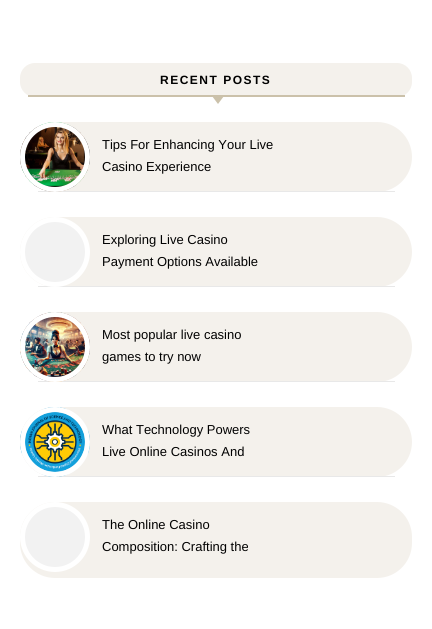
import math
import cairo


def use_color(cr, r, g, b):
  cr.set_source_rgb(r / 255, g / 255, b / 255)

def text(cr, x, y, s, family, size, color, bold=False, italic=False):
  cr.select_font_face(family, cairo.FONT_SLANT_ITALIC if italic else cairo.FONT_SLANT_NORMAL, cairo.FONT_WEIGHT_BOLD if bold else cairo.FONT_WEIGHT_NORMAL)
  cr.set_font_size(size)
  use_color(cr, *color)
  cr.move_to(x, y)
  cr.show_text(s)

def spaced_text(cr, x, y, s, letter, word):
  cr.move_to(x, y)
  for ch in s:
    cr.show_text(ch)
    cr.rel_move_to(letter + word * (ch == ' '), 0)

def box(cr, x, y, w, h, *color):
  use_color(cr, *color)
  cr.rectangle(x, y, w, h)
  cr.fill()

def round_rect(cr, x, y, w, h, r):
  cr.new_sub_path()
  for i, (u, v) in enumerate([(x + w - r, y + h - r), (x + r, y + h - r), (x + r, y + r), (x + w - r, y + r)]):
    cr.arc(u, v, r, i * math.pi / 2, (i + 1) * math.pi / 2)
  cr.close_path()

def picture(cr, path, x, y, w, h):
  cr.save()
  cr.set_source_surface(cairo.ImageSurface.create_from_png(path), x, y)
  cr.rectangle(x, y, w, h)
  cr.fill()
  cr.restore()

def draw(cr):
  use_color(cr, 255, 255, 255)
  cr.paint()
  use_color(cr, 244, 241, 236)
  round_rect(cr, 20, 63, 392, 34, 15)
  cr.fill()
  box(cr, 28, 95, 377, 2, 203, 193, 170)
  cr.new_path()
  cr.move_to(212, 96)
  cr.line_to(224, 96)
  cr.line_to(218, 104)
  cr.close_path()
  cr.fill()
  use_color(cr, 244, 241, 236)
  round_rect(cr, 20, 122, 392, 70, 35)
  cr.fill()
  box(cr, 38, 191, 357, 1, 232, 232, 232)
  picture(cr, "img_01.png", 20, 122, 70, 70)
  cr.arc(55, 157, 32.5, 0, 2 * math.pi)
  use_color(cr, 255, 255, 255)
  cr.set_line_width(5)
  cr.stroke()
  use_color(cr, 244, 241, 236)
  round_rect(cr, 20, 217, 392, 70, 35)
  cr.fill()
  box(cr, 38, 286, 357, 1, 232, 232, 232)
  use_color(cr, 242, 242, 242)
  cr.arc(55, 252, 32.5, 0, 2 * math.pi)
  cr.fill_preserve()
  use_color(cr, 255, 255, 255)
  cr.stroke()
  use_color(cr, 244, 241, 236)
  round_rect(cr, 20, 312, 392, 70, 35)
  cr.fill()
  box(cr, 38, 381, 357, 1, 232, 232, 232)
  picture(cr, "img_02.png", 20, 312, 70, 70)
  cr.arc(55, 347, 32.5, 0, 2 * math.pi)
  use_color(cr, 255, 255, 255)
  cr.stroke()
  use_color(cr, 244, 241, 236)
  round_rect(cr, 20, 407, 392, 70, 35)
  cr.fill()
  box(cr, 38, 476, 357, 1, 232, 232, 232)
  use_color(cr, 242, 242, 242)
  cr.arc(55, 442, 35, 0, 2 * math.pi)
  cr.fill()
  picture(cr, "img_03.png", 20, 407, 70, 70)
  cr.arc(55, 442, 32.5, 0, 2 * math.pi)
  use_color(cr, 255, 255, 255)
  cr.stroke()
  use_color(cr, 244, 241, 236)
  round_rect(cr, 20, 502, 392, 76, 35)
  cr.fill()
  use_color(cr, 242, 242, 242)
  cr.arc(55, 537, 32.5, 0, 2 * math.pi)
  cr.fill_preserve()
  use_color(cr, 255, 255, 255)
  cr.stroke()
  cr.select_font_face("Liberation Sans", cairo.FONT_SLANT_NORMAL, cairo.FONT_WEIGHT_BOLD)
  cr.set_font_size(12)
  use_color(cr, 1, 1, 1)
  spaced_text(cr, 160, 84, "RECENT POSTS", 1.5, 0)
  text(cr, 102, 149, "Tips For Enhancing Your Live", "Liberation Sans", 13, (1, 1, 1))
  text(cr, 102, 171, "Casino Experience", "Liberation Sans", 13, (1, 1, 1))
  text(cr, 102, 244, "Exploring Live Casino", "Liberation Sans", 13, (1, 1, 1))
  text(cr, 102, 266, "Payment Options Available", "Liberation Sans", 13, (1, 1, 1))
  text(cr, 102, 339, "Most popular live casino", "Liberation Sans", 13, (1, 1, 1))
  text(cr, 102, 361, "games to try now", "Liberation Sans", 13, (1, 1, 1))
  text(cr, 102, 434, "What Technology Powers", "Liberation Sans", 13, (1, 1, 1))
  text(cr, 102, 456, "Live Online Casinos And", "Liberation Sans", 13, (1, 1, 1))
  text(cr, 102, 529, "The Online Casino", "Liberation Sans", 13, (1, 1, 1))
  text(cr, 102, 551, "Composition: Crafting the", "Liberation Sans", 13, (1, 1, 1))


surface = cairo.ImageSurface(cairo.FORMAT_RGB24, 432, 629)
cr = cairo.Context(surface)
options = cairo.FontOptions()
options.set_hint_metrics(cairo.HINT_METRICS_OFF)
options.set_hint_style(cairo.HINT_STYLE_NONE)
cr.set_font_options(options)
cr.set_miter_limit(4)
draw(cr)
surface.write_to_png("out.png")
